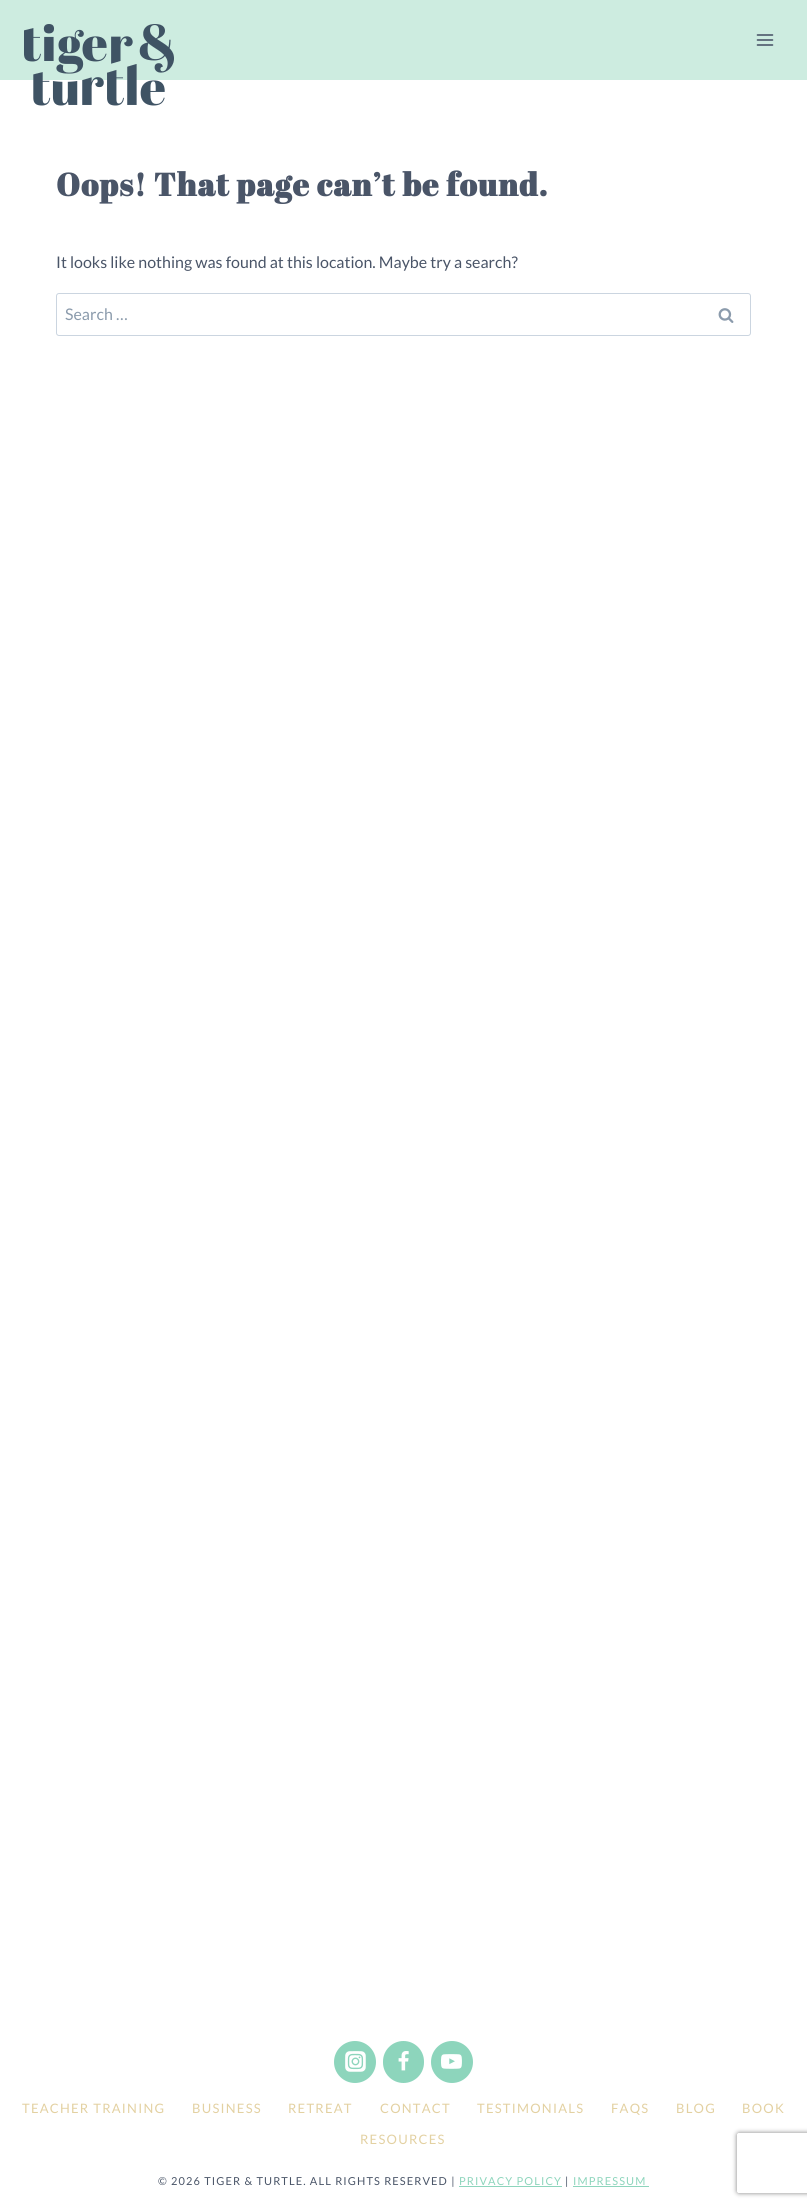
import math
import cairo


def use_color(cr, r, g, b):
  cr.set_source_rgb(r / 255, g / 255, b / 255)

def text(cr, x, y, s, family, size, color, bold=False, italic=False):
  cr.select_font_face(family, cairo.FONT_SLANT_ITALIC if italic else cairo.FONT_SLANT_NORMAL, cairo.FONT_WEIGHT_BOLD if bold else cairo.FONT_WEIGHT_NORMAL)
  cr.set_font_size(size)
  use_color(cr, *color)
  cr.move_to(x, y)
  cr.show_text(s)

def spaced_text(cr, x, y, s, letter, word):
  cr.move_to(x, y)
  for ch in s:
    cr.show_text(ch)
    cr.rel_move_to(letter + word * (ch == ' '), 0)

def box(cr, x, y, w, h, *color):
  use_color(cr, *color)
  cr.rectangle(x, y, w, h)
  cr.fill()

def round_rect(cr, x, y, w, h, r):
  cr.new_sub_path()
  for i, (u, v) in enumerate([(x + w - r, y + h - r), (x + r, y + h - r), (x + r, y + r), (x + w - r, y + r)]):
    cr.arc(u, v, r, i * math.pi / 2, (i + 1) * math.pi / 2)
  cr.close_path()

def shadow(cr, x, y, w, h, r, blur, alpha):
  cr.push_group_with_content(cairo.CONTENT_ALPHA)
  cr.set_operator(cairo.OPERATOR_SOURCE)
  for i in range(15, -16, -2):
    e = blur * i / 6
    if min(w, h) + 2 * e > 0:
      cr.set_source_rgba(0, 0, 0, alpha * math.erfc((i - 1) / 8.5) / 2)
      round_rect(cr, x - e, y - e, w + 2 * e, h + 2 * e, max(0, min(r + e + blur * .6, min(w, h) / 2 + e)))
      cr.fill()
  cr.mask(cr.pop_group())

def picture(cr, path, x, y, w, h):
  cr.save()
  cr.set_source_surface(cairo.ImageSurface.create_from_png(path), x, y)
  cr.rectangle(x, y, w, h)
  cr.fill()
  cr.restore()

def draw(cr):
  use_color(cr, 255, 255, 255)
  cr.paint()
  box(cr, 0, 0, 807, 80, 205, 236, 224)
  picture(cr, "img_01.png", 24, 24, 150, 82)
  picture(cr, "img_02.png", 756, 34, 18, 12)
  round_rect(cr, 56.5, 293.5, 694, 42, 2.5)
  use_color(cr, 203, 213, 224)
  cr.set_line_width(1)
  cr.stroke()
  picture(cr, "img_03.png", 718, 308, 16, 15)
  use_color(cr, 141, 213, 188)
  cr.arc(355, 2062, 21, 0, 2 * math.pi)
  cr.fill()
  picture(cr, "img_04.png", 345, 2051, 21, 21)
  round_rect(cr, 383, 2041, 41, 42, 20.5)
  cr.fill()
  picture(cr, "img_05.png", 398, 2051, 11, 20)
  cr.arc(452, 2062, 21, 0, 2 * math.pi)
  cr.fill()
  picture(cr, "img_06.png", 441, 2054, 21, 15)
  box(cr, 459, 2186, 103, 1, 141, 213, 188)
  box(cr, 573, 2186, 76, 1, 141, 213, 188)
  cr.save()
  cr.set_fill_rule(cairo.FILL_RULE_EVEN_ODD)
  cr.new_path()
  cr.move_to(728, 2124)
  cr.line_to(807, 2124)
  cr.line_to(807, 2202)
  cr.line_to(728, 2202)
  cr.close_path()
  cr.move_to(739, 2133)
  cr.line_to(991, 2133)
  cr.curve_to(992, 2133, 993, 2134, 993, 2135)
  cr.line_to(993, 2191)
  cr.curve_to(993, 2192, 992, 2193, 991, 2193)
  cr.line_to(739, 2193)
  cr.curve_to(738, 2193, 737, 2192, 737, 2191)
  cr.line_to(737, 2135)
  cr.curve_to(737, 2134, 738, 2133, 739, 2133)
  cr.close_path()
  cr.clip()
  use_color(cr, 128, 128, 128)
  shadow(cr, 737, 2133, 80, 60, 2, 2.5, 1)
  cr.restore()
  cr.select_font_face("Abril Fatface", cairo.FONT_SLANT_NORMAL, cairo.FONT_WEIGHT_BOLD)
  cr.set_font_size(32)
  use_color(cr, 74, 85, 104)
  spaced_text(cr, 56, 196, "Oops! That page can’t be found.", 1, 0)
  text(cr, 56, 268, "It looks like nothing was found at this location. Maybe try a search?", "Lato", 16, (74, 85, 104))
  text(cr, 65, 320, "Search …", "Lato", 16, (139, 155, 172))
  cr.set_font_size(13)
  use_color(cr, 227, 209, 162)
  spaced_text(cr, 22, 2113, "TEACHER TRAINING", 1.25, 0)
  spaced_text(cr, 192, 2113, "BUSINESS", 1.25, 0)
  spaced_text(cr, 288, 2113, "RETREAT", 1.25, 0)
  spaced_text(cr, 380, 2113, "CONTACT", 1.25, 0)
  spaced_text(cr, 477, 2113, "TESTIMONIALS", 1.25, 0)
  spaced_text(cr, 611, 2113, "FAQS", 1.25, 0)
  spaced_text(cr, 676, 2113, "BLOG", 1.25, 0)
  spaced_text(cr, 742, 2113, "BOOK", 1.25, 0)
  spaced_text(cr, 360, 2144, "RESOURCES", 1.25, 0)
  cr.set_font_size(11)
  use_color(cr, 74, 85, 104)
  spaced_text(cr, 158, 2185, "© 2026 TIGER & TURTLE. ALL RIGHTS RESERVED |", 1.1, 0)
  use_color(cr, 141, 213, 188)
  spaced_text(cr, 459, 2185, "PRIVACY POLICY", 1.1, 0)
  use_color(cr, 74, 85, 104)
  spaced_text(cr, 565, 2185, "|", 1.1, 0)
  use_color(cr, 141, 213, 188)
  spaced_text(cr, 573, 2185, "IMPRESSUM", 1.1, 0)


surface = cairo.ImageSurface(cairo.FORMAT_RGB24, 807, 2207)
cr = cairo.Context(surface)
options = cairo.FontOptions()
options.set_hint_metrics(cairo.HINT_METRICS_OFF)
options.set_hint_style(cairo.HINT_STYLE_NONE)
cr.set_font_options(options)
cr.set_miter_limit(4)
draw(cr)
surface.write_to_png("out.png")
